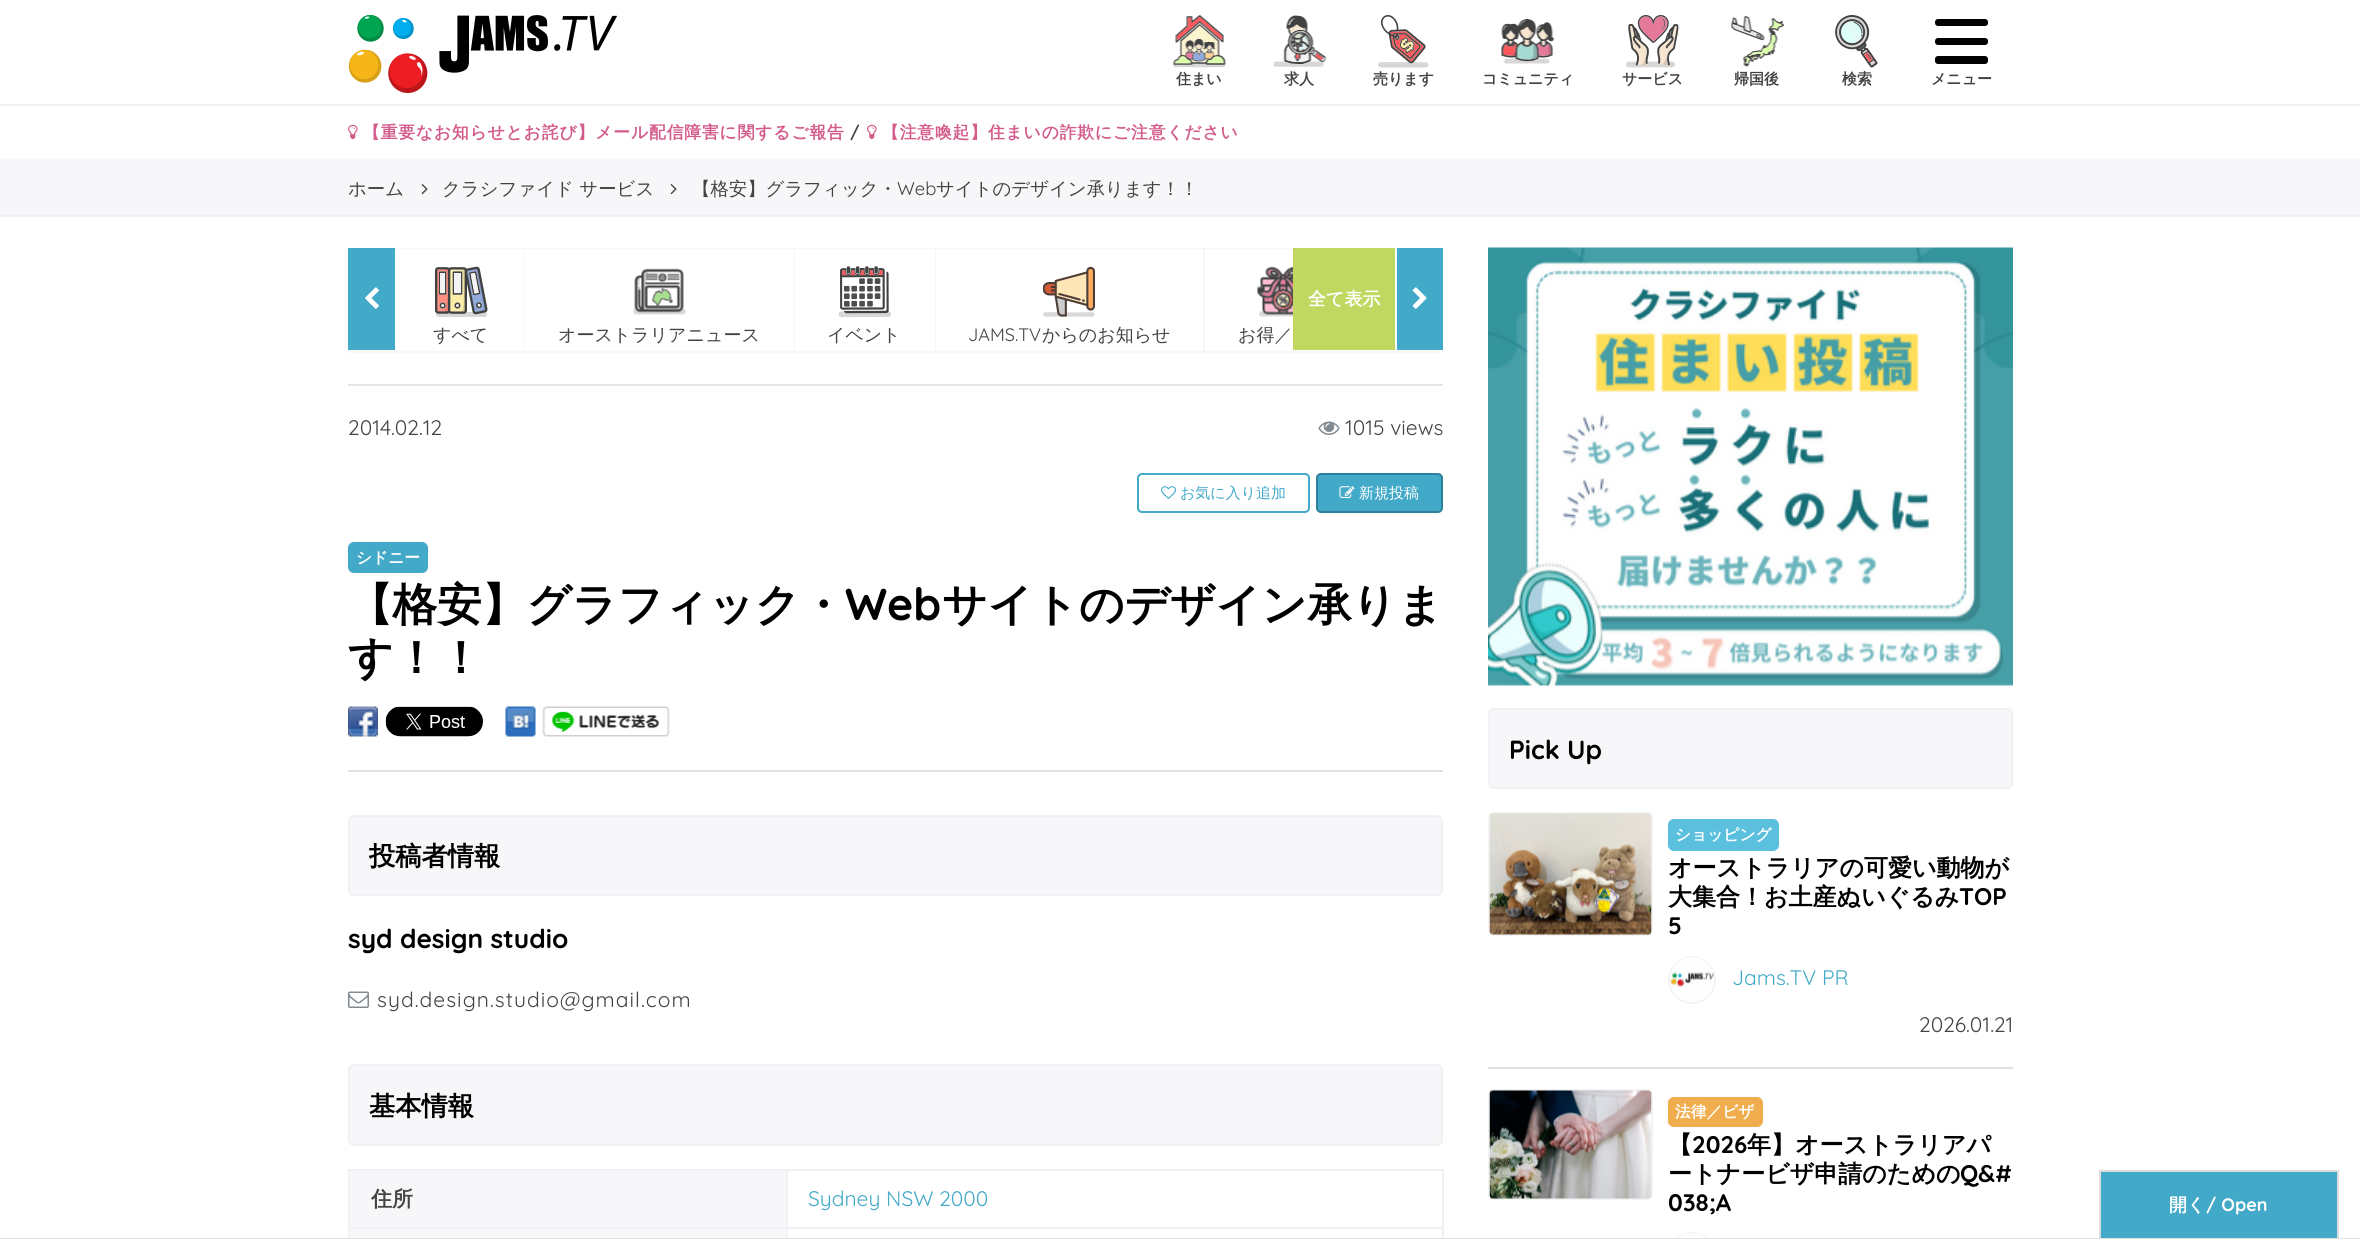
import math
import cairo


def use_color(cr, r, g, b):
  cr.set_source_rgb(r / 255, g / 255, b / 255)

def text(cr, x, y, s, family, size, color, bold=False, italic=False):
  cr.select_font_face(family, cairo.FONT_SLANT_ITALIC if italic else cairo.FONT_SLANT_NORMAL, cairo.FONT_WEIGHT_BOLD if bold else cairo.FONT_WEIGHT_NORMAL)
  cr.set_font_size(size)
  use_color(cr, *color)
  cr.move_to(x, y)
  cr.show_text(s)

def spaced_text(cr, x, y, s, letter, word):
  cr.move_to(x, y)
  for ch in s:
    cr.show_text(ch)
    cr.rel_move_to(letter + word * (ch == ' '), 0)

def box(cr, x, y, w, h, *color):
  use_color(cr, *color)
  cr.rectangle(x, y, w, h)
  cr.fill()

def round_rect(cr, x, y, w, h, r):
  cr.new_sub_path()
  for i, (u, v) in enumerate([(x + w - r, y + h - r), (x + r, y + h - r), (x + r, y + r), (x + w - r, y + r)]):
    cr.arc(u, v, r, i * math.pi / 2, (i + 1) * math.pi / 2)
  cr.close_path()

def picture(cr, path, x, y, w, h):
  cr.save()
  cr.set_source_surface(cairo.ImageSurface.create_from_png(path), x, y)
  cr.rectangle(x, y, w, h)
  cr.fill()
  cr.restore()

def draw(cr):
  use_color(cr, 255, 255, 255)
  cr.paint()
  box(cr, 0, 104, 2360, 2, 241, 241, 245)
  picture(cr, "img_01.png", 348, 15, 269, 78)
  picture(cr, "img_02.png", 1173, 15, 53, 53)
  picture(cr, "img_03.png", 1273, 15, 54, 52)
  picture(cr, "img_04.png", 1378, 15, 51, 53)
  picture(cr, "img_05.png", 1501, 19, 54, 45)
  picture(cr, "img_06.png", 1626, 15, 53, 53)
  picture(cr, "img_07.png", 1731, 16, 53, 51)
  picture(cr, "img_08.png", 1835, 15, 43, 53)
  use_color(cr, 0, 0, 0)
  round_rect(cr, 1935, 19, 53, 7, 3)
  cr.fill()
  round_rect(cr, 1935, 38, 53, 7, 3)
  cr.fill()
  round_rect(cr, 1935, 56, 53, 8, 3)
  cr.fill()
  picture(cr, "img_09.png", 348, 124, 10, 16)
  picture(cr, "img_09.png", 867, 124, 10, 16)
  box(cr, 0, 159, 2360, 56, 247, 247, 249)
  box(cr, 0, 215, 2360, 2, 241, 241, 245)
  picture(cr, "img_10.png", 421, 184, 7, 11)
  picture(cr, "img_10.png", 670, 184, 7, 11)
  cr.rectangle(349, 249, 1093, 103)
  use_color(cr, 247, 247, 249)
  cr.stroke()
  box(cr, 348, 248, 47, 102, 67, 169, 200)
  picture(cr, "img_11.png", 365, 287, 14, 22)
  box(cr, 1205, 249, 156, 1, 255, 255, 255)
  box(cr, 1293, 248, 102, 102, 192, 216, 96)
  box(cr, 1397, 248, 46, 102, 67, 169, 200)
  picture(cr, "img_12.png", 1412, 287, 15, 22)
  box(cr, 398, 249, 126, 1, 255, 255, 255)
  box(cr, 524, 249, 1, 102, 247, 247, 249)
  picture(cr, "img_13.png", 435, 266, 53, 51)
  box(cr, 525, 249, 269, 1, 255, 255, 255)
  box(cr, 794, 249, 1, 102, 247, 247, 249)
  picture(cr, "img_14.png", 633, 268, 53, 47)
  box(cr, 795, 249, 140, 1, 255, 255, 255)
  box(cr, 935, 249, 1, 102, 247, 247, 249)
  picture(cr, "img_15.png", 839, 266, 52, 52)
  box(cr, 936, 249, 267, 1, 255, 255, 255)
  box(cr, 1203, 249, 2, 102, 247, 247, 249)
  picture(cr, "img_16.png", 1043, 266, 52, 51)
  box(cr, 1361, 350, 1, 1, 247, 247, 249)
  picture(cr, "img_17.png", 1257, 266, 36, 51)
  box(cr, 348, 384, 1095, 2, 230, 230, 230)
  box(cr, 348, 770, 1095, 2, 225, 225, 225)
  picture(cr, "img_18.png", 1318, 421, 22, 14)
  round_rect(cr, 1138, 474, 171, 38, 4)
  use_color(cr, 67, 169, 200)
  cr.stroke()
  picture(cr, "img_19.png", 1161, 486, 15, 13)
  round_rect(cr, 1317, 474, 125, 38, 4)
  cr.fill_preserve()
  use_color(cr, 45, 130, 155)
  cr.stroke()
  picture(cr, "img_20.png", 1339, 486, 16, 12)
  use_color(cr, 67, 169, 200)
  round_rect(cr, 348, 542, 80, 31, 6)
  cr.fill()
  picture(cr, "img_21.png", 348, 706, 30, 31)
  picture(cr, "img_22.png", 385, 706, 98, 31)
  picture(cr, "img_23.png", 505, 706, 31, 31)
  picture(cr, "img_24.png", 542, 706, 128, 31)
  use_color(cr, 247, 247, 249)
  round_rect(cr, 349, 816, 1093, 79, 5)
  cr.fill_preserve()
  use_color(cr, 241, 241, 245)
  cr.stroke()
  picture(cr, "img_25.png", 348, 991, 21, 17)
  use_color(cr, 247, 247, 249)
  round_rect(cr, 349, 1065, 1093, 80, 5)
  cr.fill_preserve()
  use_color(cr, 241, 241, 245)
  cr.stroke()
  box(cr, 350, 1171, 436, 56, 247, 247, 249)
  box(cr, 786, 1169, 657, 2, 241, 241, 245)
  box(cr, 786, 1227, 657, 2, 241, 241, 245)
  box(cr, 786, 1227, 2, 12, 241, 241, 245)
  box(cr, 348, 1227, 440, 2, 241, 241, 245)
  box(cr, 786, 1169, 2, 60, 241, 241, 245)
  box(cr, 348, 1169, 440, 2, 241, 241, 245)
  box(cr, 348, 1227, 2, 12, 241, 241, 245)
  box(cr, 348, 1169, 2, 60, 241, 241, 245)
  box(cr, 1442, 1227, 2, 12, 241, 241, 245)
  box(cr, 1442, 1169, 2, 60, 241, 241, 245)
  box(cr, 350, 1229, 436, 9, 247, 247, 249)
  picture(cr, "img_26.png", 1488, 247, 525, 439)
  round_rect(cr, 1489, 709, 523, 79, 5)
  cr.fill_preserve()
  use_color(cr, 241, 241, 245)
  cr.stroke()
  box(cr, 1488, 1067, 525, 2, 225, 225, 225)
  round_rect(cr, 1489, 813, 163, 122, 5)
  use_color(cr, 243, 243, 243)
  cr.stroke()
  picture(cr, "img_27.png", 1489, 813, 163, 122)
  use_color(cr, 91, 192, 222)
  round_rect(cr, 1668, 819, 111, 32, 6)
  cr.fill()
  cr.arc(1692, 980, 23, 0, 2 * math.pi)
  use_color(cr, 243, 243, 243)
  cr.stroke()
  picture(cr, "img_28.png", 1670, 957, 44, 41)
  round_rect(cr, 1489, 1090, 163, 109, 5)
  cr.stroke()
  picture(cr, "img_29.png", 1489, 1090, 163, 109)
  use_color(cr, 240, 173, 78)
  round_rect(cr, 1668, 1097, 95, 30, 6)
  cr.fill()
  round_rect(cr, 1669, 1233, 46, 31, 23)
  use_color(cr, 243, 243, 243)
  cr.stroke()
  picture(cr, "img_30.png", 1677, 1233, 30, 5)
  box(cr, 0, 1238, 2360, 1, 225, 225, 225)
  box(cr, 2101, 1172, 236, 66, 67, 169, 200)
  box(cr, 2099, 1170, 240, 2, 221, 221, 221)
  box(cr, 2337, 1170, 2, 68, 221, 221, 221)
  box(cr, 2099, 1170, 2, 68, 221, 221, 221)
  text(cr, 1176, 84, "住まい", "WenQuanYi Zen Hei", 15, (67, 67, 67), bold=True)
  text(cr, 1284, 84, "求人", "WenQuanYi Zen Hei", 15, (67, 67, 67), bold=True)
  text(cr, 1373, 84, "売ります", "WenQuanYi Zen Hei", 15, (67, 67, 67), bold=True)
  text(cr, 1482, 84, "コミュニティ", "WenQuanYi Zen Hei", 15, (67, 67, 67), bold=True)
  text(cr, 1622, 84, "サービス", "WenQuanYi Zen Hei", 15, (67, 67, 67), bold=True)
  text(cr, 1734, 84, "帰国後", "WenQuanYi Zen Hei", 15, (67, 67, 67), bold=True)
  text(cr, 1842, 84, "検索", "WenQuanYi Zen Hei", 15, (67, 67, 67), bold=True)
  text(cr, 1931, 84, "メニュー", "WenQuanYi Zen Hei", 15, (67, 67, 67), bold=True)
  cr.set_font_size(16.8)
  use_color(cr, 211, 92, 140)
  spaced_text(cr, 363, 138, "【重要なお知らせとお詫び】メール配信障害に関するご報告", 0.85, 0)
  cr.select_font_face("Quicksand", cairo.FONT_SLANT_NORMAL, cairo.FONT_WEIGHT_BOLD)
  use_color(cr, 67, 67, 67)
  spaced_text(cr, 850, 138, "/", 0.85, 0)
  cr.select_font_face("WenQuanYi Zen Hei", cairo.FONT_SLANT_NORMAL, cairo.FONT_WEIGHT_BOLD)
  use_color(cr, 211, 92, 140)
  spaced_text(cr, 882, 138, "【注意喚起】住まいの詐欺にご注意ください", 0.85, 0)
  text(cr, 348, 195, "ホーム", "WenQuanYi Zen Hei Medium", 18.4, (67, 67, 67))
  text(cr, 442, 195, "クラシファイド サービス", "WenQuanYi Zen Hei Medium", 18.4, (67, 67, 67))
  text(cr, 692, 195, "【格安】グラフィック・", "WenQuanYi Zen Hei Medium", 18.4, (67, 67, 67))
  text(cr, 897, 195, "Web", "Quicksand", 18.4, (67, 67, 67))
  text(cr, 936, 195, "サイトのデザイン承ります！！", "WenQuanYi Zen Hei Medium", 18.4, (67, 67, 67))
  text(cr, 1308, 305, "全て表示", "WenQuanYi Zen Hei", 18, (255, 255, 255), bold=True)
  text(cr, 433, 341, "すべて", "WenQuanYi Zen Hei Medium", 18, (67, 67, 67))
  text(cr, 558, 341, "オーストラリアニュース", "WenQuanYi Zen Hei Medium", 18, (67, 67, 67))
  text(cr, 827, 341, "イベント", "WenQuanYi Zen Hei Medium", 18, (67, 67, 67))
  text(cr, 968, 341, "JAMS.TV", "Quicksand", 18, (67, 67, 67))
  text(cr, 1042, 341, "からのお知らせ", "WenQuanYi Zen Hei Medium", 18, (67, 67, 67))
  text(cr, 1238, 341, "お得／", "WenQuanYi Zen Hei Medium", 18, (67, 67, 67))
  text(cr, 348, 435, "2014.02.12", "Quicksand", 21, (67, 67, 67))
  text(cr, 1345, 435, "1015 views", "Quicksand", 21, (67, 67, 67))
  text(cr, 1180, 498, "お気に入り追加", "WenQuanYi Zen Hei Medium", 15, (67, 169, 200))
  text(cr, 1359, 498, "新規投稿", "WenQuanYi Zen Hei Medium", 15, (255, 255, 255))
  text(cr, 356, 563, "シドニー", "WenQuanYi Zen Hei", 15.75, (255, 255, 255), bold=True)
  text(cr, 348, 620, "【格安】グラフィック・", "WenQuanYi Zen Hei", 44.6, (0, 0, 0), bold=True)
  text(cr, 845, 620, "Web", "Quicksand", 44.6, (0, 0, 0), bold=True)
  text(cr, 942, 620, "サイトのデザイン承りま", "WenQuanYi Zen Hei", 44.6, (0, 0, 0), bold=True)
  text(cr, 348, 673, "す！！", "WenQuanYi Zen Hei", 44.6, (0, 0, 0), bold=True)
  text(cr, 369, 865, "投稿者情報", "WenQuanYi Zen Hei", 26.25, (0, 0, 0), bold=True)
  text(cr, 348, 948, "syd design studio", "Quicksand", 26.25, (0, 0, 0), bold=True)
  cr.select_font_face("Quicksand")
  cr.set_font_size(21)
  use_color(cr, 67, 67, 67)
  spaced_text(cr, 377, 1007, "syd.design.studio@gmail.com", 1.05, 0)
  text(cr, 369, 1115, "基本情報", "WenQuanYi Zen Hei", 26.25, (0, 0, 0), bold=True)
  text(cr, 371, 1206, "住所", "WenQuanYi Zen Hei", 21, (67, 67, 67), bold=True)
  text(cr, 808, 1206, "Sydney NSW 2000", "Quicksand", 21, (67, 169, 200))
  text(cr, 1509, 759, "Pick Up", "Quicksand", 26.25, (0, 0, 0), bold=True)
  text(cr, 1675, 840, "ショッピング", "WenQuanYi Zen Hei", 15.75, (255, 255, 255), bold=True)
  text(cr, 1668, 876, "オーストラリアの可愛い動物が", "WenQuanYi Zen Hei", 24, (0, 0, 0), bold=True)
  text(cr, 1668, 905, "大集合！お土産ぬいぐるみ", "WenQuanYi Zen Hei", 24, (0, 0, 0), bold=True)
  text(cr, 1959, 905, "TOP", "Quicksand", 24, (0, 0, 0), bold=True)
  text(cr, 1668, 934, "5", "Quicksand", 24, (0, 0, 0), bold=True)
  text(cr, 1732, 985, "Jams.TV PR", "Quicksand", 21, (67, 169, 200))
  text(cr, 1919, 1032, "2026.01.21", "Quicksand", 21, (67, 67, 67))
  text(cr, 1675, 1117, "法律／ビザ", "WenQuanYi Zen Hei", 15.75, (255, 255, 255), bold=True)
  text(cr, 1668, 1153, "【", "WenQuanYi Zen Hei", 24, (0, 0, 0), bold=True)
  text(cr, 1692, 1153, "2026", "Quicksand", 24, (0, 0, 0), bold=True)
  text(cr, 1747, 1153, "年】オーストラリアパ", "WenQuanYi Zen Hei", 24, (0, 0, 0), bold=True)
  text(cr, 1668, 1182, "ートナービザ申請のための", "WenQuanYi Zen Hei", 24, (0, 0, 0), bold=True)
  text(cr, 1960, 1182, "Q&#", "Quicksand", 24, (0, 0, 0), bold=True)
  text(cr, 1668, 1211, "038;A", "Quicksand", 24, (0, 0, 0), bold=True)
  text(cr, 2169, 1211, "開く", "WenQuanYi Zen Hei", 18, (255, 255, 255), bold=True)
  text(cr, 2206, 1211, "/ Open", "Quicksand", 18, (255, 255, 255), bold=True)


surface = cairo.ImageSurface(cairo.FORMAT_RGB24, 2360, 1239)
cr = cairo.Context(surface)
options = cairo.FontOptions()
options.set_hint_metrics(cairo.HINT_METRICS_OFF)
options.set_hint_style(cairo.HINT_STYLE_NONE)
cr.set_font_options(options)
cr.set_miter_limit(4)
draw(cr)
surface.write_to_png("out.png")
